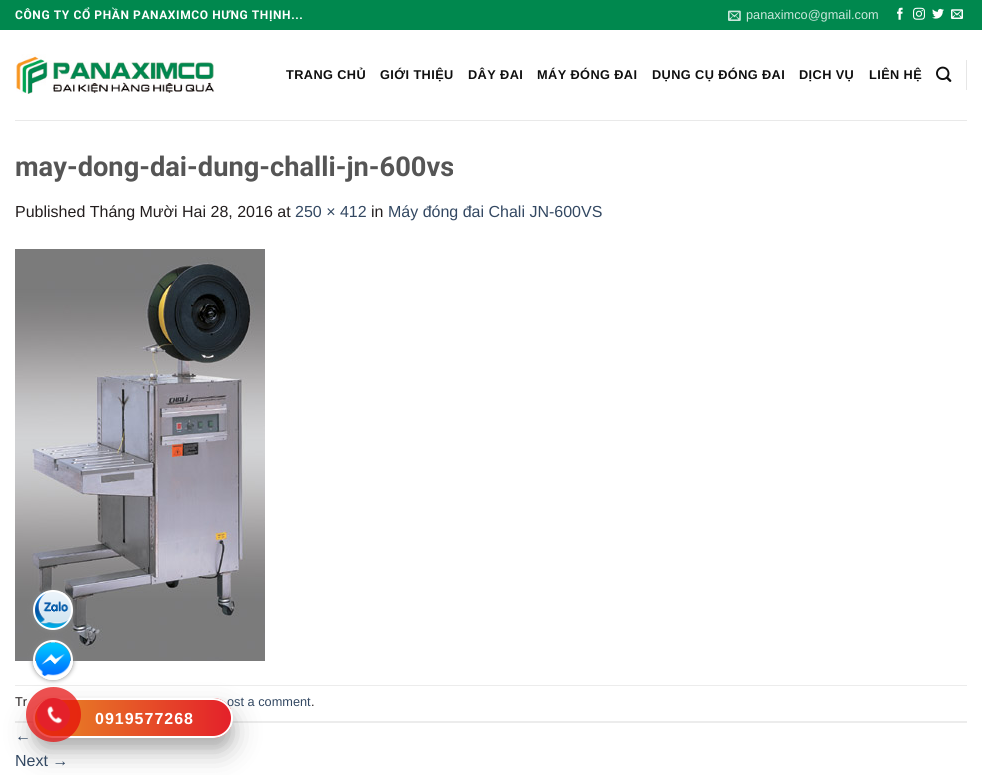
import math
import cairo


def use_color(cr, r, g, b):
  cr.set_source_rgb(r / 255, g / 255, b / 255)

def text(cr, x, y, s, family, size, color, bold=False, italic=False):
  cr.select_font_face(family, cairo.FONT_SLANT_ITALIC if italic else cairo.FONT_SLANT_NORMAL, cairo.FONT_WEIGHT_BOLD if bold else cairo.FONT_WEIGHT_NORMAL)
  cr.set_font_size(size)
  use_color(cr, *color)
  cr.move_to(x, y)
  cr.show_text(s)

def spaced_text(cr, x, y, s, letter, word):
  cr.move_to(x, y)
  for ch in s:
    cr.show_text(ch)
    cr.rel_move_to(letter + word * (ch == ' '), 0)

def box(cr, x, y, w, h, *color):
  use_color(cr, *color)
  cr.rectangle(x, y, w, h)
  cr.fill()

def round_rect(cr, x, y, w, h, r):
  cr.new_sub_path()
  for i, (u, v) in enumerate([(x + w - r, y + h - r), (x + r, y + h - r), (x + r, y + r), (x + w - r, y + r)]):
    cr.arc(u, v, r, i * math.pi / 2, (i + 1) * math.pi / 2)
  cr.close_path()

def shadow(cr, x, y, w, h, r, blur, alpha):
  cr.push_group_with_content(cairo.CONTENT_ALPHA)
  cr.set_operator(cairo.OPERATOR_SOURCE)
  for i in range(15, -16, -2):
    e = blur * i / 6
    if min(w, h) + 2 * e > 0:
      cr.set_source_rgba(0, 0, 0, alpha * math.erfc((i - 1) / 8.5) / 2)
      round_rect(cr, x - e, y - e, w + 2 * e, h + 2 * e, max(0, min(r + e + blur * .6, min(w, h) / 2 + e)))
      cr.fill()
  cr.mask(cr.pop_group())

def picture(cr, path, x, y, w, h):
  cr.save()
  cr.set_source_surface(cairo.ImageSurface.create_from_png(path), x, y)
  cr.rectangle(x, y, w, h)
  cr.fill()
  cr.restore()

def draw(cr):
  use_color(cr, 255, 255, 255)
  cr.paint()
  box(cr, 0, 0, 982, 30, 0, 136, 78)
  picture(cr, "img_01.png", 728, 10, 13, 11)
  picture(cr, "img_02.png", 897, 7, 6, 13)
  picture(cr, "img_03.png", 913, 7, 12, 13)
  picture(cr, "img_04.png", 932, 8, 12, 11)
  picture(cr, "img_05.png", 951, 9, 12, 10)
  picture(cr, "img_06.png", 16, 54, 199, 40)
  picture(cr, "img_07.png", 936, 66, 16, 16)
  box(cr, 966, 60, 1, 30, 230, 230, 230)
  box(cr, 15, 120, 952, 1, 233, 233, 233)
  picture(cr, "img_08.png", 15, 249, 250, 412)
  box(cr, 15, 685, 952, 1, 236, 236, 236)
  box(cr, 15, 721, 952, 2, 236, 236, 236)
  use_color(cr, 136, 136, 136)
  shadow(cr, 33, 590, 40, 40, 20, 2.5, 1)
  picture(cr, "img_09.png", 35, 592, 36, 36)
  cr.arc(53, 610, 19, 0, 2 * math.pi)
  use_color(cr, 255, 255, 255)
  cr.stroke()
  use_color(cr, 0, 0, 0)
  shadow(cr, 33, 708, 200, 40, 20, 5, 0.1)
  shadow(cr, 33, 712, 200, 40, 20, 14, 0.25)
  cr.select_font_face("Roboto", cairo.FONT_SLANT_NORMAL, cairo.FONT_WEIGHT_BOLD)
  cr.set_font_size(12)
  use_color(cr, 255, 255, 255)
  spaced_text(cr, 15, 19, "CÔNG TY CỔ PHẦN PANAXIMCO HƯNG THỊNH...", 0.6, 0)
  text(cr, 746, 19, "panaximco@gmail.com", "Liberation Sans", 12.75, (204, 231, 220))
  cr.select_font_face("Liberation Sans", cairo.FONT_SLANT_NORMAL, cairo.FONT_WEIGHT_BOLD)
  use_color(cr, 15, 15, 15)
  spaced_text(cr, 286, 79, "TRANG CHỦ", 0.4, 0)
  spaced_text(cr, 380, 79, "GIỚI THIỆU", 0.4, 0)
  spaced_text(cr, 468, 79, "DÂY ĐAI", 0.4, 0)
  spaced_text(cr, 537, 79, "MÁY ĐÓNG ĐAI", 0.4, 0)
  spaced_text(cr, 652, 79, "DỤNG CỤ ĐÓNG ĐAI", 0.4, 0)
  spaced_text(cr, 799, 79, "DỊCH VỤ", 0.4, 0)
  spaced_text(cr, 869, 79, "LIÊN HỆ", 0.4, 0)
  text(cr, 15, 176, "may-dong-dai-dung-challi-jn-600vs", "Roboto", 27.25, (85, 85, 85), bold=True)
  text(cr, 15, 217, "Published Tháng Mười Hai 28, 2016 at", "Liberation Sans", 16, (35, 30, 30))
  text(cr, 295, 217, "250 × 412", "Liberation Sans", 16, (51, 72, 98))
  text(cr, 371, 217, "in", "Liberation Sans", 16, (35, 30, 30))
  text(cr, 388, 217, "Máy đóng đai Chali JN-600VS", "Liberation Sans", 16, (51, 72, 98))
  text(cr, 15, 706, "Tr", "Liberation Sans", 12.75, (35, 30, 30))
  text(cr, 227, 706, "ost a comment", "Liberation Sans", 12.75, (51, 72, 98))
  text(cr, 311, 706, ".", "Liberation Sans", 12.75, (35, 30, 30))
  text(cr, 15, 741, "←", "Liberation Sans", 16, (51, 72, 98))
  text(cr, 15, 766, "Next →", "Liberation Sans", 16, (51, 72, 98))
  cr.save()
  round_rect(cr, 33, 698, 200, 40, 20)
  cr.clip()
  gradient = cairo.LinearGradient(35, 718, 231, 718)
  gradient.add_color_stop_rgba(0, 0.91, 0.541, 0.145, 1)
  gradient.add_color_stop_rgba(1, 0.894, 0.129, 0.165, 1)
  cr.set_source(gradient)
  cr.rectangle(35, 698, 196, 40)
  cr.fill()
  cr.restore()
  round_rect(cr, 34, 699, 198, 38, 19)
  use_color(cr, 255, 255, 255)
  cr.stroke()
  cr.set_source_rgba(0.902, 0.031, 0.031, 0.7)
  cr.arc(53.5, 714.5, 27.5, 0, 2 * math.pi)
  cr.fill()
  cr.save()
  cr.set_fill_rule(cairo.FILL_RULE_EVEN_ODD)
  cr.new_path()
  cr.move_to(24, 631)
  cr.line_to(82, 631)
  cr.line_to(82, 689)
  cr.line_to(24, 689)
  cr.close_path()
  cr.move_to(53, 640)
  cr.curve_to(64, 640, 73, 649, 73, 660)
  cr.curve_to(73, 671, 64, 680, 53, 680)
  cr.curve_to(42, 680, 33, 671, 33, 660)
  cr.curve_to(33, 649, 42, 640, 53, 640)
  cr.close_path()
  cr.clip()
  use_color(cr, 136, 136, 136)
  shadow(cr, 33, 640, 40, 40, 20, 2.5, 1)
  cr.restore()
  picture(cr, "img_10.png", 35, 642, 36, 36)
  cr.arc(53, 660, 19, 0, 2 * math.pi)
  use_color(cr, 255, 255, 255)
  cr.stroke()
  use_color(cr, 228, 33, 42)
  cr.arc(53.5, 714.5, 16.5, 0, 2 * math.pi)
  cr.fill()
  picture(cr, "img_11.png", 47, 706, 16, 18)
  cr.select_font_face("Liberation Sans", cairo.FONT_SLANT_NORMAL, cairo.FONT_WEIGHT_BOLD)
  use_color(cr, 255, 255, 255)
  spaced_text(cr, 95, 724, "0919577268", 1, 0)


surface = cairo.ImageSurface(cairo.FORMAT_RGB24, 982, 775)
cr = cairo.Context(surface)
options = cairo.FontOptions()
options.set_hint_metrics(cairo.HINT_METRICS_OFF)
options.set_hint_style(cairo.HINT_STYLE_NONE)
cr.set_font_options(options)
cr.set_miter_limit(4)
draw(cr)
surface.write_to_png("out.png")
